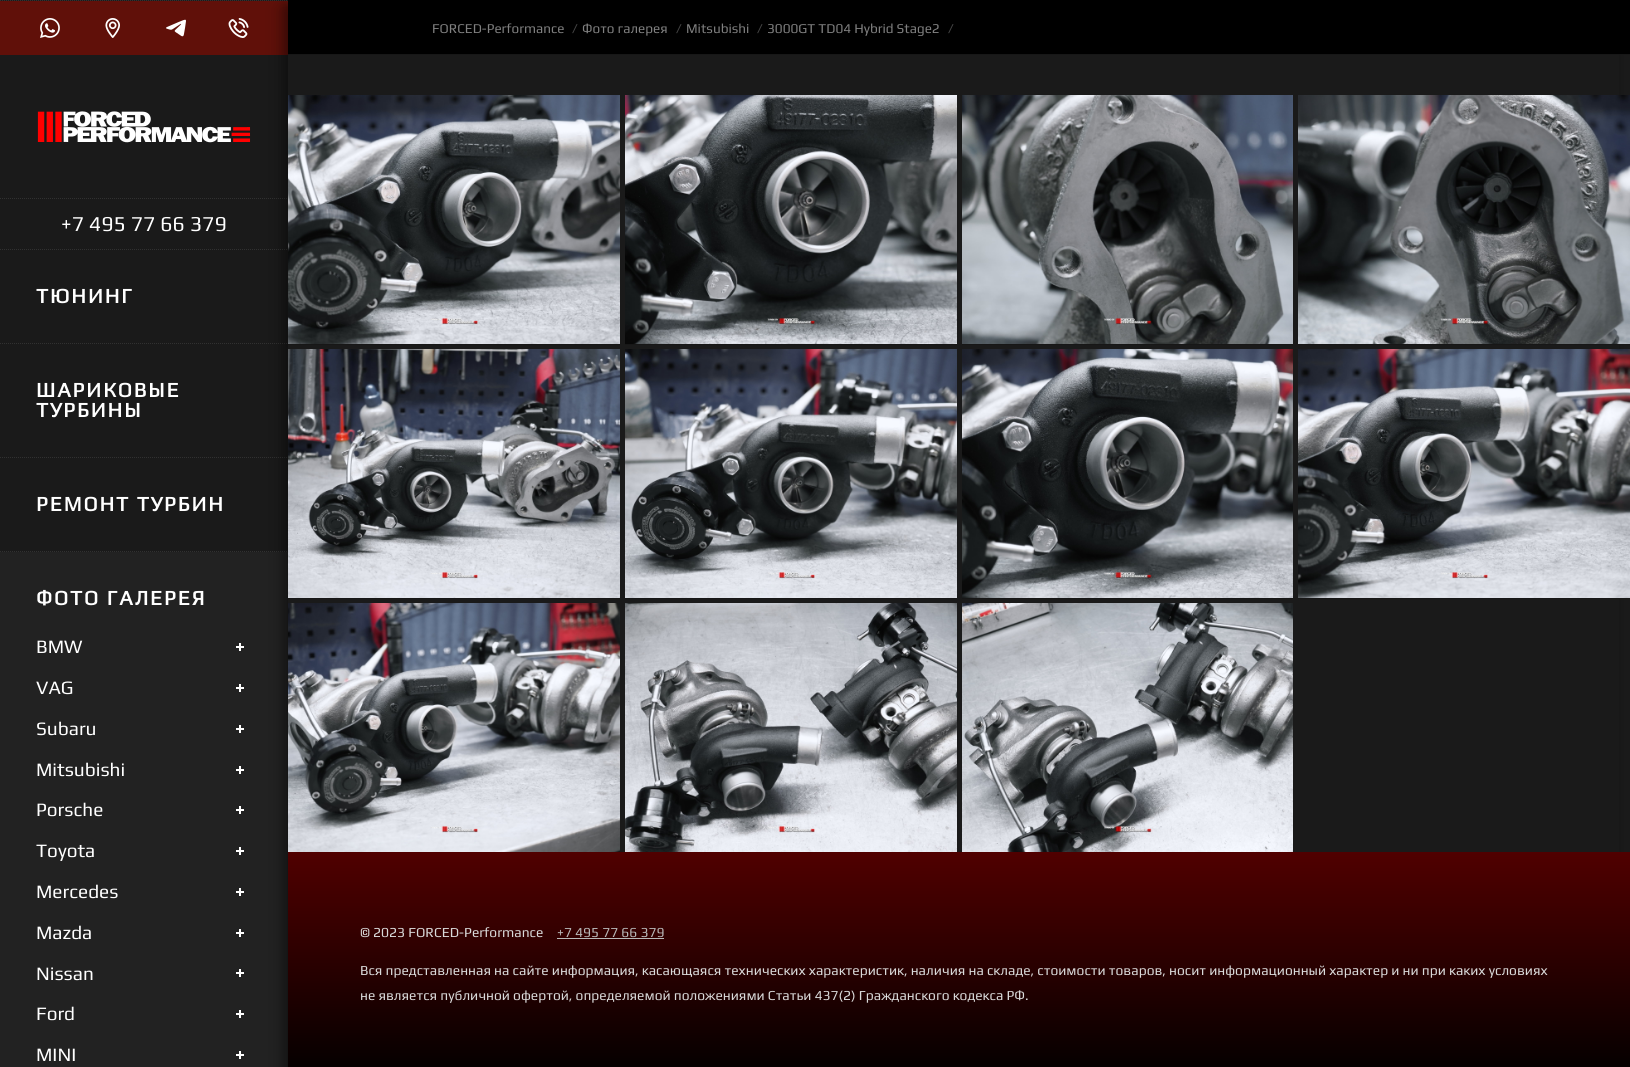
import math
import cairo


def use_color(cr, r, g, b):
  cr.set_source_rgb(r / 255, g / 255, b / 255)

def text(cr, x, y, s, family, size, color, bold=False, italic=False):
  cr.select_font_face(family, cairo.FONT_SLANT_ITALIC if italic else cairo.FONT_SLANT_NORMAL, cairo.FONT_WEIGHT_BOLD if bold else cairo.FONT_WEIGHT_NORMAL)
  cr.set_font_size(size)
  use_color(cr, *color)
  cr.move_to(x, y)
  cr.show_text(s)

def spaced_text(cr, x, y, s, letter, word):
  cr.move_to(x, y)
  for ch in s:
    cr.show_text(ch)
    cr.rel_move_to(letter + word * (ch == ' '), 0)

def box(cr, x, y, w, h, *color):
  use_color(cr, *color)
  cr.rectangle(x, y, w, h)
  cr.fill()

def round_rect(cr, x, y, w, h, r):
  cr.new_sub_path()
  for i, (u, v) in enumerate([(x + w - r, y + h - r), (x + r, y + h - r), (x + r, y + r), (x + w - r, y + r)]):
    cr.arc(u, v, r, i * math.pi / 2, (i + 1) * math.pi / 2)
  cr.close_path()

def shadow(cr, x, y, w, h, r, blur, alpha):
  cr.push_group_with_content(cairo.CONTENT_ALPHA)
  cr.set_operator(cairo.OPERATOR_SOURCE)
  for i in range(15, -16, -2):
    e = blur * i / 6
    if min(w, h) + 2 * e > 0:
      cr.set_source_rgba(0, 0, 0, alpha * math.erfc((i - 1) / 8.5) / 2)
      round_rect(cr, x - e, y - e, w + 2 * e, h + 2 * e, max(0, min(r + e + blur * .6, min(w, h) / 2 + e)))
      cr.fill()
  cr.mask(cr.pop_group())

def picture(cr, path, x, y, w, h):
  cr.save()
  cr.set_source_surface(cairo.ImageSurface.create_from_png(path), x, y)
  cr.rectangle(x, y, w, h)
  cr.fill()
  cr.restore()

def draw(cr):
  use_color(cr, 26, 26, 26)
  cr.paint()
  box(cr, 0, 1, 288, 54, 96, 16, 9)
  cr.new_path()
  cr.move_to(0, 0.5)
  cr.line_to(288, 0.5)
  use_color(cr, 49, 49, 49)
  cr.set_line_width(1)
  cr.set_dash([1, 1])
  cr.stroke()
  cr.new_path()
  cr.move_to(0, 198.5)
  cr.line_to(288, 198.5)
  cr.stroke()
  cr.new_path()
  cr.move_to(0, 249.5)
  cr.line_to(288, 249.5)
  cr.stroke()
  cr.new_path()
  cr.move_to(0, 343.5)
  cr.line_to(288, 343.5)
  cr.stroke()
  cr.new_path()
  cr.move_to(0, 457.5)
  cr.line_to(288, 457.5)
  cr.stroke()
  box(cr, 0, 552, 288, 515, 34, 34, 34)
  cr.new_path()
  cr.move_to(0, 551.5)
  cr.line_to(288, 551.5)
  use_color(cr, 49, 49, 49)
  cr.stroke()
  use_color(cr, 0, 0, 0)
  shadow(cr, 284, 4, 1334, 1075, 0, 4, 0.25)
  shadow(cr, 280, 8, 1326, 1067, 0, 8, 0.25)
  box(cr, 288, 54, 1342, 1, 23, 23, 23)
  box(cr, 288, 0, 1342, 54, 0, 0, 0)
  picture(cr, "img_01.png", 40, 18, 20, 20)
  picture(cr, "img_02.png", 105, 18, 15, 20)
  picture(cr, "img_03.png", 166, 19, 20, 18)
  picture(cr, "img_04.png", 228, 18, 21, 20)
  picture(cr, "img_05.png", 37, 111, 214, 32)
  box(cr, 239, 643, 2, 8, 255, 255, 255)
  box(cr, 236, 646, 8, 2, 255, 255, 255)
  box(cr, 239, 684, 2, 8, 255, 255, 255)
  box(cr, 236, 687, 8, 2, 255, 255, 255)
  box(cr, 239, 725, 2, 8, 255, 255, 255)
  box(cr, 236, 728, 8, 2, 255, 255, 255)
  box(cr, 239, 766, 2, 8, 255, 255, 255)
  box(cr, 236, 769, 8, 2, 255, 255, 255)
  box(cr, 239, 806, 2, 8, 255, 255, 255)
  box(cr, 236, 809, 8, 2, 255, 255, 255)
  box(cr, 239, 847, 2, 8, 255, 255, 255)
  box(cr, 236, 850, 8, 2, 255, 255, 255)
  box(cr, 239, 888, 2, 8, 255, 255, 255)
  box(cr, 236, 891, 8, 2, 255, 255, 255)
  box(cr, 239, 929, 2, 8, 255, 255, 255)
  box(cr, 236, 932, 8, 2, 255, 255, 255)
  box(cr, 239, 969, 2, 8, 255, 255, 255)
  box(cr, 236, 972, 8, 2, 255, 255, 255)
  box(cr, 239, 1010, 2, 8, 255, 255, 255)
  box(cr, 236, 1013, 8, 2, 255, 255, 255)
  box(cr, 239, 1051, 2, 8, 255, 255, 255)
  box(cr, 236, 1054, 8, 2, 255, 255, 255)
  box(cr, 288, 55, 1331, 797, 26, 26, 26)
  box(cr, 288, 344, 332, 1, 23, 23, 23)
  picture(cr, "img_06.png", 288, 95, 332, 249)
  box(cr, 625, 344, 332, 1, 23, 23, 23)
  picture(cr, "img_07.png", 625, 95, 332, 249)
  box(cr, 962, 344, 331, 1, 23, 23, 23)
  picture(cr, "img_08.png", 962, 95, 331, 249)
  box(cr, 1298, 344, 332, 1, 23, 23, 23)
  picture(cr, "img_09.png", 1298, 95, 332, 249)
  box(cr, 288, 598, 332, 1, 23, 23, 23)
  picture(cr, "img_10.png", 288, 349, 332, 249)
  box(cr, 625, 598, 332, 1, 23, 23, 23)
  picture(cr, "img_11.png", 625, 349, 332, 249)
  box(cr, 962, 598, 331, 1, 23, 23, 23)
  picture(cr, "img_12.png", 962, 349, 331, 249)
  box(cr, 1298, 598, 332, 1, 23, 23, 23)
  picture(cr, "img_13.png", 1298, 349, 332, 249)
  picture(cr, "img_14.png", 288, 603, 332, 249)
  picture(cr, "img_15.png", 625, 603, 332, 249)
  picture(cr, "img_16.png", 962, 603, 331, 249)
  gradient = cairo.LinearGradient(959, 852, 959, 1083)
  gradient.add_color_stop_rgba(0, 0.314, 0, 0, 1)
  gradient.add_color_stop_rgba(1, 0, 0, 0, 1)
  cr.set_source(gradient)
  cr.rectangle(288, 852, 1342, 215)
  cr.fill()
  box(cr, 557, 938, 107, 1, 185, 185, 185)
  text(cr, 432, 33, "FORCED-Performance", "Play", 13.5, (128, 128, 128))
  text(cr, 572, 33, "/", "Play", 13.5, (69, 69, 69))
  text(cr, 582, 33, "Фото галерея", "Play", 13.5, (128, 128, 128))
  text(cr, 676, 33, "/", "Play", 13.5, (69, 69, 69))
  text(cr, 686, 33, "Mitsubishi", "Play", 13.5, (128, 128, 128))
  text(cr, 757, 33, "/", "Play", 13.5, (69, 69, 69))
  text(cr, 767, 33, "3000GT TD04 Hybrid Stage2", "Play", 13.5, (128, 128, 128))
  text(cr, 948, 33, "/", "Play", 13.5, (69, 69, 69))
  text(cr, 61, 231, "+7 495 77 66 379", "Play", 21.25, (255, 255, 255))
  cr.select_font_face("Play", cairo.FONT_SLANT_NORMAL, cairo.FONT_WEIGHT_BOLD)
  cr.set_font_size(20.75)
  spaced_text(cr, 36, 303, "ТЮНИНГ", 1.9, 0)
  spaced_text(cr, 36, 397, "ШАРИКОВЫЕ", 1.9, 0)
  spaced_text(cr, 36, 417, "ТУРБИНЫ", 1.9, 0)
  spaced_text(cr, 36, 511, "РЕМОНТ ТУРБИН", 1.9, 0)
  spaced_text(cr, 36, 605, "ФОТО ГАЛЕРЕЯ", 1.9, 0)
  text(cr, 36, 653, "BMW", "Play", 19, (255, 255, 255))
  text(cr, 36, 694, "VAG", "Play", 19, (255, 255, 255))
  text(cr, 36, 735, "Subaru", "Play", 19, (255, 255, 255))
  text(cr, 36, 776, "Mitsubishi", "Play", 19, (255, 255, 255))
  text(cr, 36, 816, "Porsche", "Play", 19, (255, 255, 255))
  text(cr, 36, 857, "Toyota", "Play", 19, (255, 255, 255))
  text(cr, 36, 898, "Mercedes", "Play", 19, (255, 255, 255))
  text(cr, 36, 939, "Mazda", "Play", 19, (255, 255, 255))
  text(cr, 36, 980, "Nissan", "Play", 19, (255, 255, 255))
  text(cr, 36, 1020, "Ford", "Play", 19, (255, 255, 255))
  text(cr, 36, 1061, "MINI", "Play", 19, (255, 255, 255))
  text(cr, 360, 937, "© 2023 FORCED-Performance", "Play", 13.78, (217, 217, 217))
  text(cr, 557, 937, "+7 495 77 66 379", "Play", 13.78, (185, 185, 185))
  text(cr, 360, 975, "Вся представленная на сайте информация, касающаяся технических характеристик, наличия на складе, стоимости товаров, носит информационный характер и ни при каких условиях", "Play", 13.78, (217, 217, 217))
  text(cr, 360, 1000, "не является публичной офертой, определяемой положениями Статьи 437(2) Гражданского кодекса РФ.", "Play", 13.78, (217, 217, 217))


surface = cairo.ImageSurface(cairo.FORMAT_RGB24, 1630, 1067)
cr = cairo.Context(surface)
options = cairo.FontOptions()
options.set_hint_metrics(cairo.HINT_METRICS_OFF)
options.set_hint_style(cairo.HINT_STYLE_NONE)
cr.set_font_options(options)
cr.set_miter_limit(4)
draw(cr)
surface.write_to_png("out.png")
